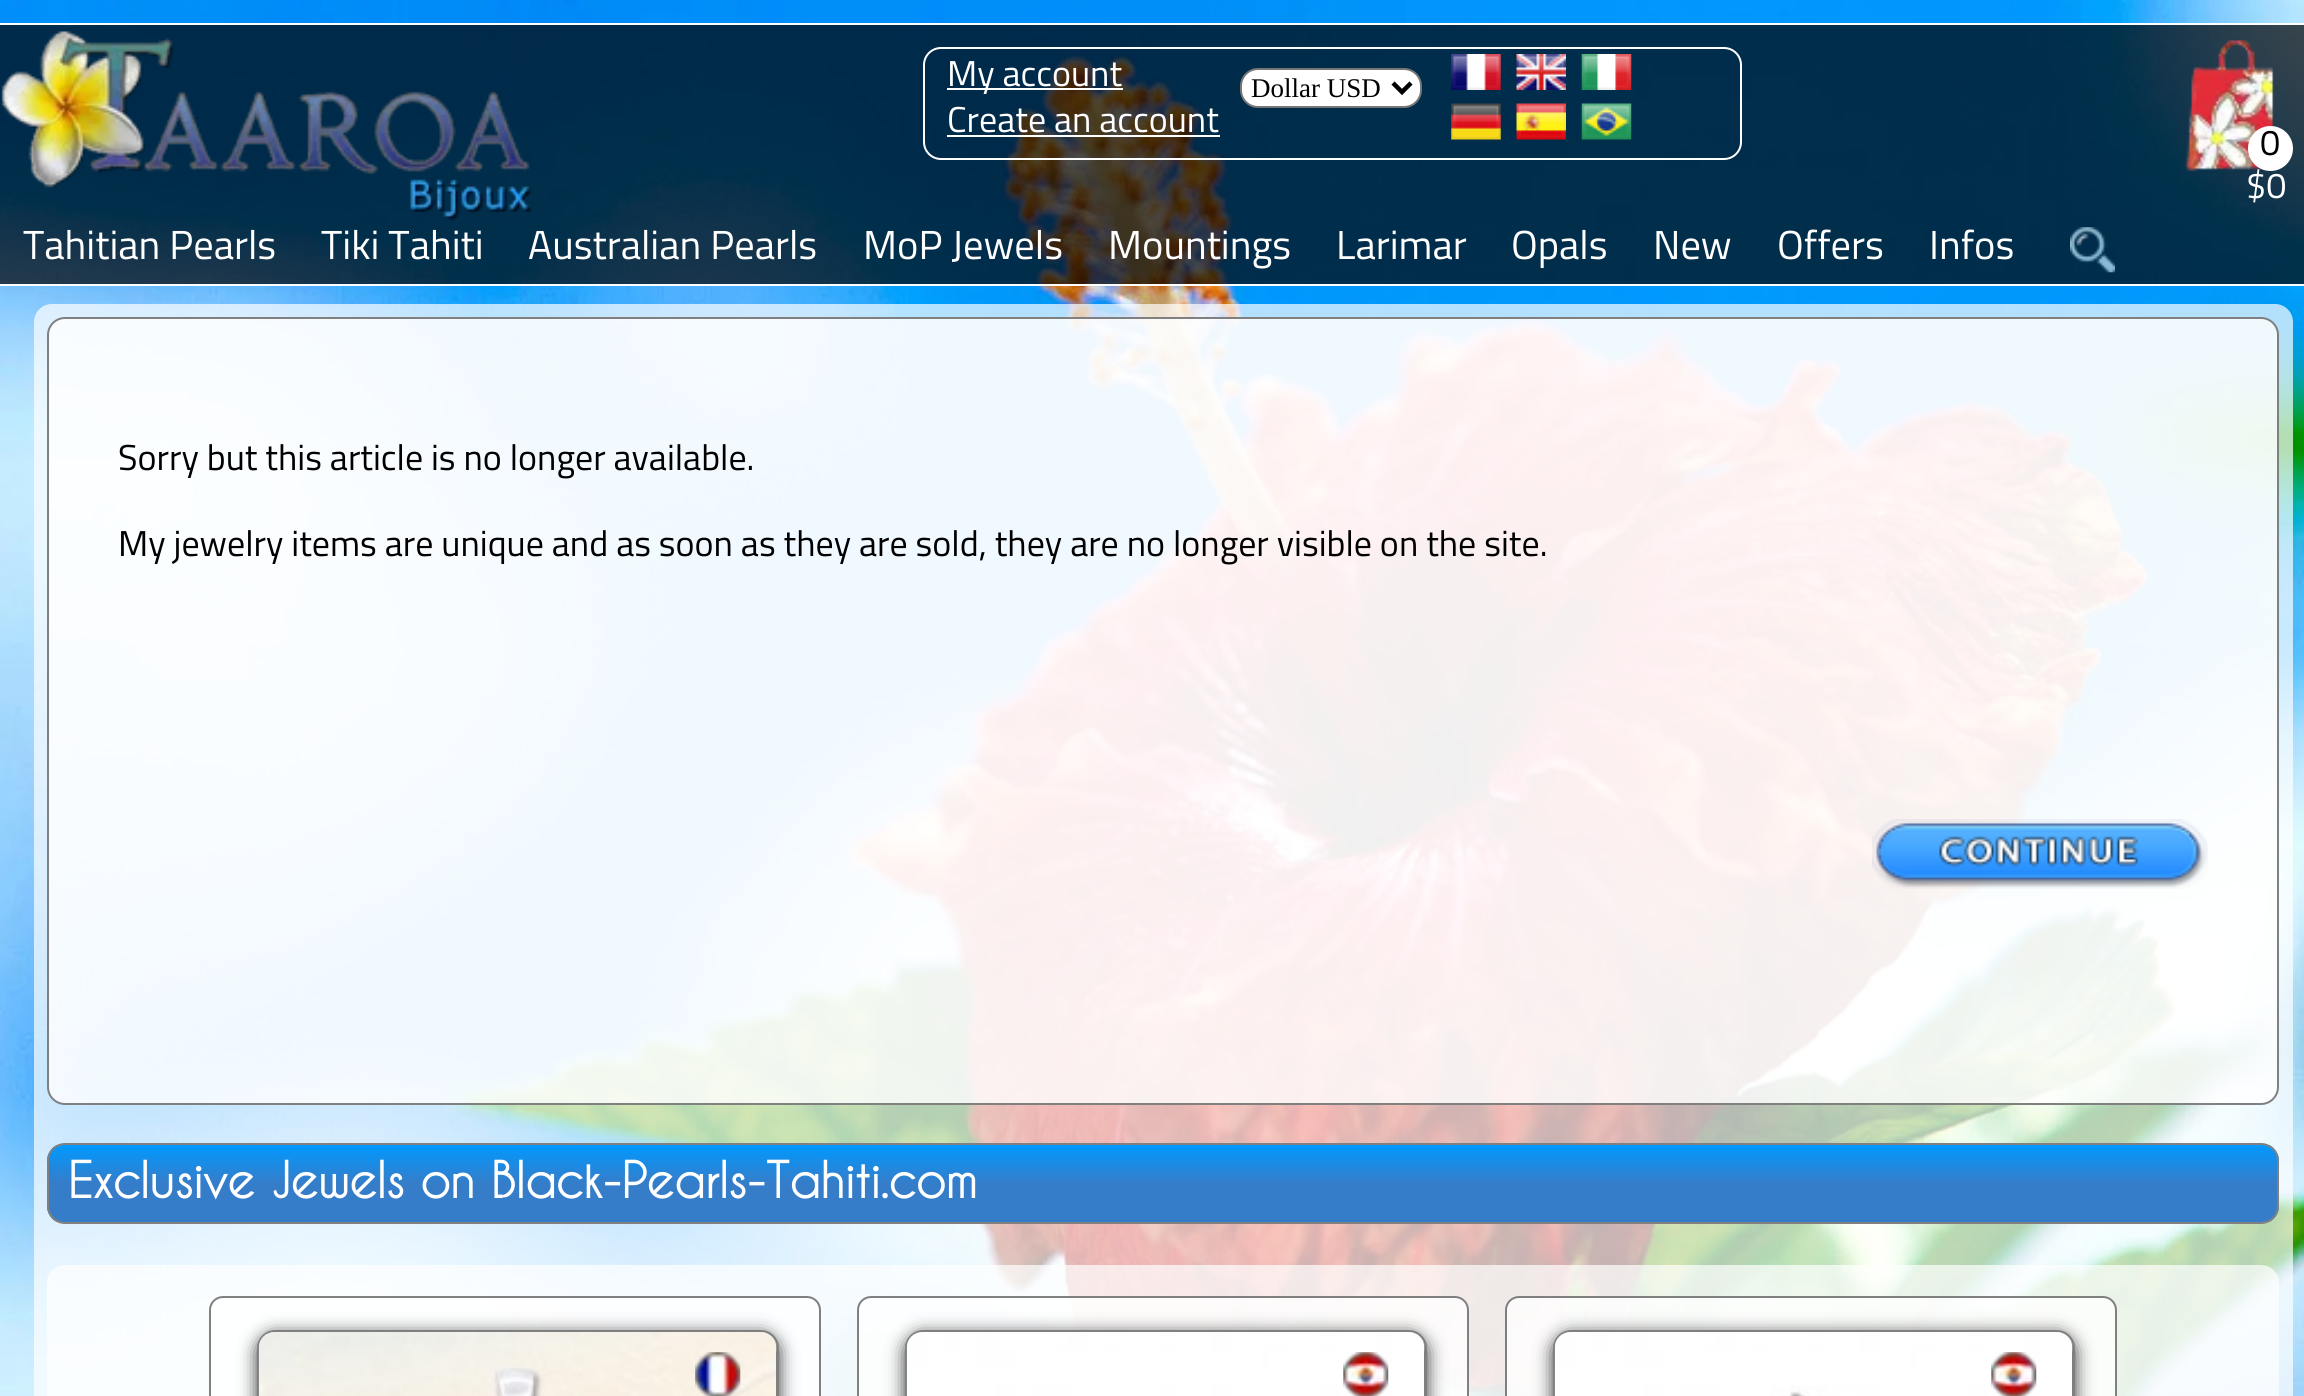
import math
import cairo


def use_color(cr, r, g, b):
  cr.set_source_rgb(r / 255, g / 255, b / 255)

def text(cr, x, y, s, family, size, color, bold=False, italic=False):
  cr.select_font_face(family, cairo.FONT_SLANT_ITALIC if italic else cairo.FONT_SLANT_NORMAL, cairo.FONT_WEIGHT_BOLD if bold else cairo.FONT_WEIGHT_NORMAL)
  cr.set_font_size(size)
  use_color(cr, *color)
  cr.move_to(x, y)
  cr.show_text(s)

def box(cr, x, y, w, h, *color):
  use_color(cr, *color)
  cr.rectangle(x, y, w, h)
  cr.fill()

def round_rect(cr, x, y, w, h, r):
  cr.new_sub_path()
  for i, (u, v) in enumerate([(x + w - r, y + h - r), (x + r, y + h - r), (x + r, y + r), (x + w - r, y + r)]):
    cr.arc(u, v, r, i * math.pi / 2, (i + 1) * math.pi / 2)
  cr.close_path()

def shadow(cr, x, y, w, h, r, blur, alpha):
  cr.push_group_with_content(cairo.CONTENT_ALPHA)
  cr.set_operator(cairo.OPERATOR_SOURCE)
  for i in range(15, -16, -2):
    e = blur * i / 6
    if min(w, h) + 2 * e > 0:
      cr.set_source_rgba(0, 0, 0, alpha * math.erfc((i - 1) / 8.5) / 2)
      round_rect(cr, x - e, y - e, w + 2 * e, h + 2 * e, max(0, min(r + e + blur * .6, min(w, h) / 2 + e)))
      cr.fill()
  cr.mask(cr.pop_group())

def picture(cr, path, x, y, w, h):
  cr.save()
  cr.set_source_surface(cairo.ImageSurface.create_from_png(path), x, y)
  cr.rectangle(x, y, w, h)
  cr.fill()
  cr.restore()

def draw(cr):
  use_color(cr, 255, 255, 255)
  cr.paint()
  picture(cr, "img_01.png", 0, 0, 2304, 1396)
  cr.set_source_rgba(0, 0, 0, 0.7)
  cr.rectangle(0, 25, 2304, 259)
  cr.fill()
  box(cr, 0, 23, 2304, 2, 255, 255, 255)
  box(cr, 0, 284, 2304, 2, 255, 255, 255)
  picture(cr, "img_02.png", 1, 31, 531, 190)
  round_rect(cr, 924, 48, 817, 111, 17)
  cr.stroke()
  box(cr, 947, 88, 176, 2, 255, 255, 255)
  box(cr, 947, 135, 273, 2, 255, 255, 255)
  round_rect(cr, 1241, 69, 180, 38, 17)
  cr.fill_preserve()
  use_color(cr, 118, 118, 118)
  cr.stroke()
  cr.new_path()
  cr.move_to(1393, 83)
  cr.line_to(1402, 92)
  cr.line_to(1411, 83)
  use_color(cr, 0, 0, 0)
  cr.set_line_width(4.5)
  cr.stroke()
  picture(cr, "img_03.png", 1451, 54, 50, 36)
  picture(cr, "img_04.png", 1516, 54, 50, 36)
  picture(cr, "img_05.png", 1581, 54, 51, 36)
  picture(cr, "img_06.png", 1451, 103, 50, 37)
  picture(cr, "img_07.png", 1516, 103, 50, 37)
  picture(cr, "img_08.png", 1581, 103, 51, 37)
  picture(cr, "img_09.png", 2184, 40, 90, 131)
  use_color(cr, 255, 255, 255)
  cr.arc(2270.5, 148.5, 22.5, 0, 2 * math.pi)
  cr.fill()
  picture(cr, "img_10.png", 2070, 227, 45, 46)
  cr.set_source_rgba(1, 1, 1, 0.7)
  round_rect(cr, 34, 304, 2259, 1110, 18)
  cr.fill()
  cr.set_source_rgba(1, 1, 1, 0.8)
  round_rect(cr, 48, 318, 2230, 786, 17)
  cr.fill_preserve()
  use_color(cr, 128, 128, 128)
  cr.set_line_width(2)
  cr.stroke()
  picture(cr, "img_11.png", 1872, 819, 336, 70)
  cr.save()
  round_rect(cr, 47, 1143, 2232, 81, 18)
  cr.clip()
  gradient = cairo.LinearGradient(1163, 1145, 1163, 1222)
  gradient.add_color_stop_rgba(0, 0, 0.6, 1, 1)
  gradient.add_color_stop_rgba(0.5, 0.212, 0.49, 0.788, 1)
  cr.set_source(gradient)
  cr.rectangle(47, 1145, 2232, 77)
  cr.fill()
  cr.restore()
  round_rect(cr, 48, 1144, 2230, 79, 17)
  cr.stroke()
  cr.set_source_rgba(1, 1, 1, 0.7)
  round_rect(cr, 47, 1265, 2232, 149, 18)
  cr.fill()
  cr.set_source_rgba(1, 1, 1, 0.8)
  round_rect(cr, 210, 1297, 610, 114, 13)
  cr.fill_preserve()
  use_color(cr, 128, 128, 128)
  cr.stroke()
  use_color(cr, 51, 51, 51)
  shadow(cr, 257, 1334, 522, 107, 18, 9, 1)
  round_rect(cr, 258, 1331, 520, 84, 17)
  use_color(cr, 128, 128, 128)
  cr.stroke()
  picture(cr, "img_12.png", 258, 1332, 518, 64)
  picture(cr, "img_13.png", 695, 1352, 46, 44)
  cr.set_source_rgba(1, 1, 1, 0.8)
  round_rect(cr, 858, 1297, 610, 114, 13)
  cr.fill_preserve()
  use_color(cr, 128, 128, 128)
  cr.stroke()
  use_color(cr, 51, 51, 51)
  shadow(cr, 905, 1334, 522, 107, 18, 9, 1)
  round_rect(cr, 906, 1331, 520, 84, 17)
  use_color(cr, 128, 128, 128)
  cr.stroke()
  picture(cr, "img_14.png", 906, 1332, 518, 64)
  picture(cr, "img_15.png", 1343, 1352, 46, 44)
  cr.set_source_rgba(1, 1, 1, 0.8)
  round_rect(cr, 1506, 1297, 610, 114, 13)
  cr.fill_preserve()
  use_color(cr, 128, 128, 128)
  cr.stroke()
  use_color(cr, 51, 51, 51)
  shadow(cr, 1553, 1334, 522, 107, 18, 9, 1)
  round_rect(cr, 1554, 1331, 520, 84, 17)
  use_color(cr, 128, 128, 128)
  cr.stroke()
  picture(cr, "img_16.png", 1554, 1332, 518, 64)
  picture(cr, "img_17.png", 1991, 1352, 46, 44)
  text(cr, 947, 86, "My account", "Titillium", 36, (255, 255, 255))
  text(cr, 947, 132, "Create an account", "Titillium", 36, (255, 255, 255))
  text(cr, 1251, 97, "Dollar USD", "Liberation Serif", 27, (0, 0, 0))
  text(cr, 2260, 155, "0", "Titillium", 36, (0, 0, 0))
  text(cr, 2246, 198, "$0", "Titillium", 36, (255, 255, 255))
  text(cr, 23, 259, "Tahitian Pearls", "Titillium", 40.5, (255, 255, 255))
  text(cr, 321, 259, "Tiki Tahiti", "Titillium", 40.5, (255, 255, 255))
  text(cr, 528, 259, "Australian Pearls", "Titillium", 40.5, (255, 255, 255))
  text(cr, 863, 259, "MoP Jewels", "Titillium", 40.5, (255, 255, 255))
  text(cr, 1108, 259, "Mountings", "Titillium", 40.5, (255, 255, 255))
  text(cr, 1336, 259, "Larimar", "Titillium", 40.5, (255, 255, 255))
  text(cr, 1511, 259, "Opals", "Titillium", 40.5, (255, 255, 255))
  text(cr, 1653, 259, "New", "Titillium", 40.5, (255, 255, 255))
  text(cr, 1777, 259, "Offers", "Titillium", 40.5, (255, 255, 255))
  text(cr, 1929, 259, "Infos", "Titillium", 40.5, (255, 255, 255))
  text(cr, 118, 470, "Sorry but this article is no longer available.", "Titillium", 36, (0, 0, 0))
  text(cr, 118, 556, "My jewelry items are unique and as soon as they are sold, they are no longer visible on the site.", "Titillium", 36, (0, 0, 0))
  text(cr, 68, 1198, "Exclusive Jewels on Black-Pearls-Tahiti.com", "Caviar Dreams", 47.25, (255, 255, 255), bold=True)


surface = cairo.ImageSurface(cairo.FORMAT_RGB24, 2304, 1396)
cr = cairo.Context(surface)
options = cairo.FontOptions()
options.set_hint_metrics(cairo.HINT_METRICS_OFF)
options.set_hint_style(cairo.HINT_STYLE_NONE)
cr.set_font_options(options)
cr.set_miter_limit(4)
draw(cr)
surface.write_to_png("out.png")
